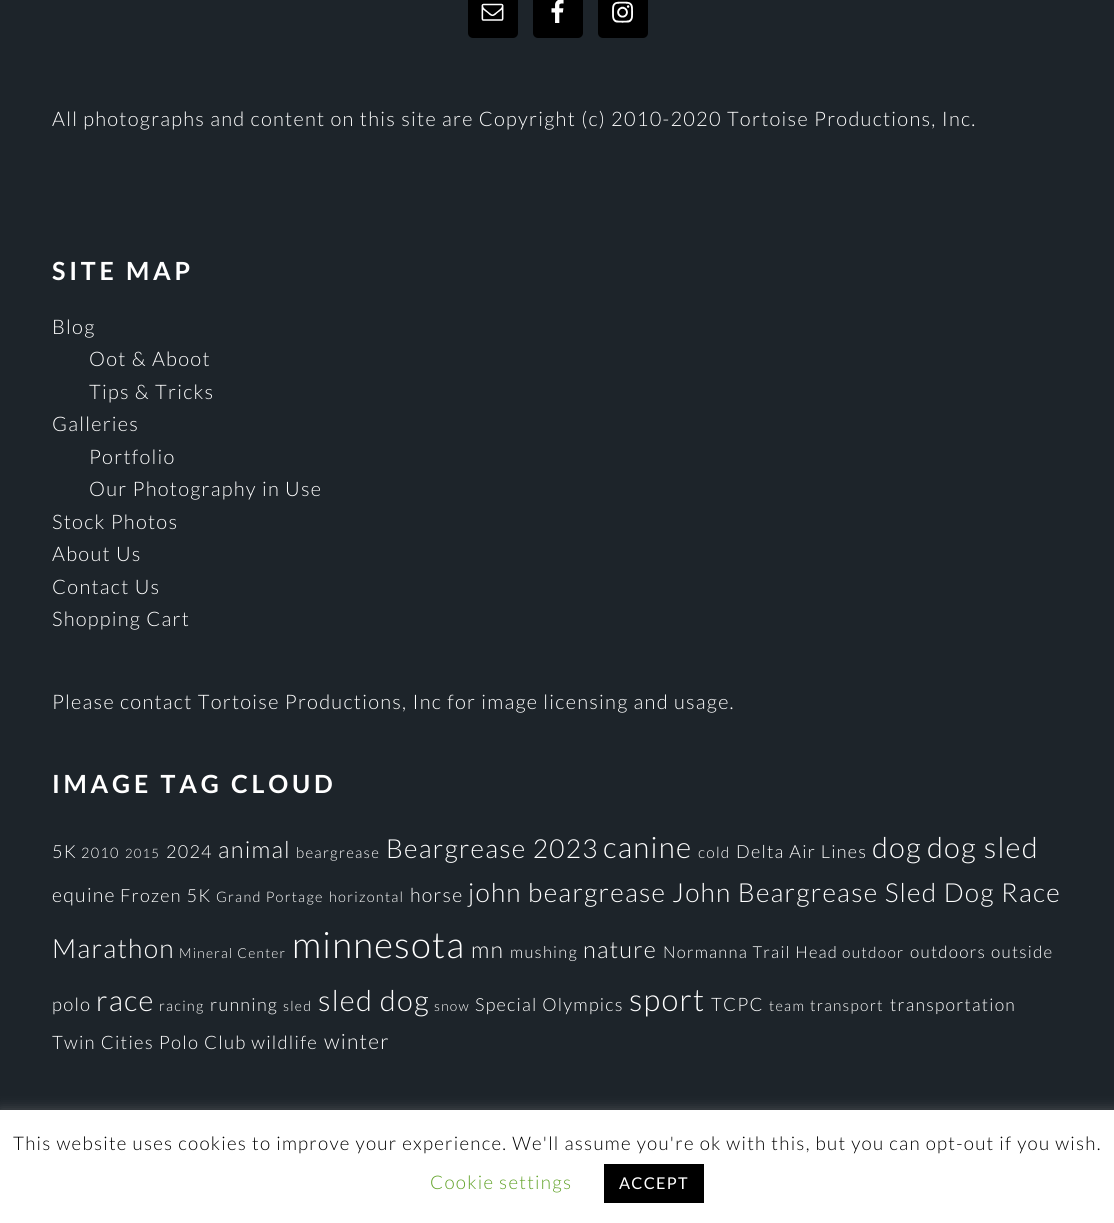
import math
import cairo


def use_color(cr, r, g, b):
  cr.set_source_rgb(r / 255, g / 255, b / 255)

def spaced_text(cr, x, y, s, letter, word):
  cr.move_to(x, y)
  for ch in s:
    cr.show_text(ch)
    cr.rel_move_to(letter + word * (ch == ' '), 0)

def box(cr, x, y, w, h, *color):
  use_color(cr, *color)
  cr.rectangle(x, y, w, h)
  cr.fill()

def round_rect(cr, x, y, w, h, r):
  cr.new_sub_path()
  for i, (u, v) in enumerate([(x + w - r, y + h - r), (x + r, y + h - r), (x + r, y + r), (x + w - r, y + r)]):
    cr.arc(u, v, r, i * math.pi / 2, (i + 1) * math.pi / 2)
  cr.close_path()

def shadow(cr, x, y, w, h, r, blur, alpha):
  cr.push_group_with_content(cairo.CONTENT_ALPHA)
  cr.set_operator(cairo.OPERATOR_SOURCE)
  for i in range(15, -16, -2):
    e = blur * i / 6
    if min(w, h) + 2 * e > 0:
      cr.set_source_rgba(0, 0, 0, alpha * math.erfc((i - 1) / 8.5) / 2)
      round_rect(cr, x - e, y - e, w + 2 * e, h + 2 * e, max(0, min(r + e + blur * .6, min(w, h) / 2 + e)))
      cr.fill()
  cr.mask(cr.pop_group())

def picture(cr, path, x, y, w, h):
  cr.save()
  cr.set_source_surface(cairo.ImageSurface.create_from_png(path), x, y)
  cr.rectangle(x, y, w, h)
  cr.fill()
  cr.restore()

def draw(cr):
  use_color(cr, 29, 36, 42)
  cr.paint()
  use_color(cr, 0, 0, 0)
  round_rect(cr, 468, -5, 50, 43, 5)
  cr.fill()
  picture(cr, "img_01.png", 481, 3, 23, 18)
  round_rect(cr, 533, -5, 50, 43, 5)
  cr.fill()
  picture(cr, "img_02.png", 551, 0, 13, 23)
  round_rect(cr, 598, -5, 50, 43, 5)
  cr.fill()
  picture(cr, "img_03.png", 612, 1, 21, 22)
  use_color(cr, 172, 171, 171)
  shadow(cr, 0, 1109, 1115, 114, 0, 6, 0.3)
  box(cr, 0, 1110, 1114, 113, 255, 255, 255)
  box(cr, 604, 1164, 100, 39, 0, 0, 0)
  cr.select_font_face("Lato Light")
  cr.set_font_size(20)
  use_color(cr, 255, 255, 255)
  spaced_text(cr, 52, 126, "All photographs and content on this site are Copyright (c) 2010-2020 Tortoise Productions, Inc.", 1.25, 0)
  cr.select_font_face("Lato", cairo.FONT_SLANT_NORMAL, cairo.FONT_WEIGHT_BOLD)
  cr.set_font_size(25)
  spaced_text(cr, 52, 280, "SITE MAP", 3.75, 0)
  cr.select_font_face("Lato Light")
  cr.set_font_size(20)
  spaced_text(cr, 52, 334, "Blog", 1.25, 0)
  spaced_text(cr, 89, 366, "Oot & Aboot", 1.25, 0)
  spaced_text(cr, 89, 399, "Tips & Tricks", 1.25, 0)
  spaced_text(cr, 52, 431, "Galleries", 1.25, 0)
  spaced_text(cr, 89, 464, "Portfolio", 1.25, 0)
  spaced_text(cr, 89, 496, "Our Photography in Use", 1.25, 0)
  spaced_text(cr, 52, 529, "Stock Photos", 1.25, 0)
  spaced_text(cr, 52, 561, "About Us", 1.25, 0)
  spaced_text(cr, 52, 594, "Contact Us", 1.25, 0)
  spaced_text(cr, 52, 626, "Shopping Cart", 1.25, 0)
  spaced_text(cr, 52, 709, "Please contact Tortoise Productions, Inc for image licensing and usage.", 1.25, 0)
  cr.select_font_face("Lato", cairo.FONT_SLANT_NORMAL, cairo.FONT_WEIGHT_BOLD)
  cr.set_font_size(25)
  spaced_text(cr, 52, 793, "IMAGE TAG CLOUD", 3.75, 0)
  cr.select_font_face("Lato Light")
  cr.set_font_size(18)
  spaced_text(cr, 52, 858, "5K", 1.25, 0)
  cr.set_font_size(14.5)
  spaced_text(cr, 81, 858, "2010", 1.25, 0)
  cr.set_font_size(13)
  spaced_text(cr, 125, 858, "2015", 1.25, 0)
  cr.set_font_size(18)
  spaced_text(cr, 166, 858, "2024", 1.25, 0)
  cr.set_font_size(23.5)
  spaced_text(cr, 218, 858, "animal", 1.25, 0)
  cr.set_font_size(15)
  spaced_text(cr, 296, 858, "beargrease", 1.25, 0)
  cr.set_font_size(26.25)
  spaced_text(cr, 386, 858, "Beargrease 2023", 1.25, 0)
  cr.set_font_size(29.5)
  spaced_text(cr, 603, 858, "canine", 1.25, 0)
  cr.set_font_size(15.5)
  spaced_text(cr, 698, 858, "cold", 1.25, 0)
  cr.set_font_size(18)
  spaced_text(cr, 736, 858, "Delta Air Lines", 1.25, 0)
  cr.set_font_size(29)
  spaced_text(cr, 872, 858, "dog", 1.25, 0)
  spaced_text(cr, 927, 858, "dog sled", 1.25, 0)
  cr.set_font_size(19.5)
  spaced_text(cr, 52, 902, "equine", 1.25, 0)
  cr.set_font_size(18)
  spaced_text(cr, 120, 902, "Frozen 5K", 1.25, 0)
  cr.set_font_size(14.5)
  spaced_text(cr, 216, 902, "Grand Portage", 1.25, 0)
  spaced_text(cr, 329, 902, "horizontal", 1.25, 0)
  cr.set_font_size(19.5)
  spaced_text(cr, 410, 902, "horse", 1.25, 0)
  cr.set_font_size(26.25)
  spaced_text(cr, 468, 902, "john beargrease", 1.25, 0)
  spaced_text(cr, 672, 902, "John Beargrease Sled Dog Race", 1.25, 0)
  cr.set_font_size(26.5)
  spaced_text(cr, 52, 958, "Marathon", 1.25, 0)
  cr.set_font_size(13.75)
  spaced_text(cr, 179, 958, "Mineral Center", 1.25, 0)
  cr.set_font_size(36.5)
  spaced_text(cr, 292, 958, "minnesota", 1.25, 0)
  cr.set_font_size(23)
  spaced_text(cr, 471, 958, "mn", 1.25, 0)
  cr.set_font_size(16.5)
  spaced_text(cr, 510, 958, "mushing", 1.25, 0)
  cr.set_font_size(23.5)
  spaced_text(cr, 583, 958, "nature", 1.25, 0)
  cr.set_font_size(16.5)
  spaced_text(cr, 663, 958, "Normanna Trail Head", 1.25, 0)
  cr.set_font_size(15.5)
  spaced_text(cr, 842, 958, "outdoor", 1.25, 0)
  cr.set_font_size(17)
  spaced_text(cr, 910, 958, "outdoors", 1.25, 0)
  spaced_text(cr, 991, 958, "outside", 1.25, 0)
  cr.set_font_size(18.5)
  spaced_text(cr, 52, 1011, "polo", 1.25, 0)
  cr.set_font_size(29)
  spaced_text(cr, 96, 1011, "race", 1.25, 0)
  cr.set_font_size(14.5)
  spaced_text(cr, 159, 1011, "racing", 1.25, 0)
  cr.set_font_size(18)
  spaced_text(cr, 210, 1011, "running", 1.25, 0)
  cr.set_font_size(14)
  spaced_text(cr, 283, 1011, "sled", 1.25, 0)
  cr.set_font_size(29)
  spaced_text(cr, 318, 1011, "sled dog", 1.25, 0)
  cr.set_font_size(13.75)
  spaced_text(cr, 434, 1011, "snow", 1.25, 0)
  cr.set_font_size(18)
  spaced_text(cr, 475, 1011, "Special Olympics", 1.25, 0)
  cr.set_font_size(31)
  spaced_text(cr, 629, 1011, "sport", 1.25, 0)
  cr.set_font_size(18.5)
  spaced_text(cr, 711, 1011, "TCPC", 1.25, 0)
  cr.set_font_size(14.5)
  spaced_text(cr, 769, 1011, "team", 1.25, 0)
  cr.set_font_size(15.5)
  spaced_text(cr, 810, 1011, "transport", 1.25, 0)
  cr.set_font_size(17.5)
  spaced_text(cr, 890, 1011, "transportation", 1.25, 0)
  cr.set_font_size(18.5)
  spaced_text(cr, 52, 1049, "Twin Cities Polo Club wildlife", 1.25, 0)
  cr.set_font_size(21)
  spaced_text(cr, 324, 1049, "winter", 1.25, 0)
  cr.set_font_size(18.75)
  use_color(cr, 0, 0, 0)
  spaced_text(cr, 13, 1150, "This website uses cookies to improve your experience. We'll assume you're ok with this, but you can opt-out if you wish.", 1.25, 0)
  use_color(cr, 98, 163, 41)
  spaced_text(cr, 430, 1189, "Cookie settings", 1.25, 0)
  cr.select_font_face("Lato")
  cr.set_font_size(16.25)
  use_color(cr, 255, 255, 255)
  spaced_text(cr, 619, 1189, "ACCEPT", 1.25, 0)


surface = cairo.ImageSurface(cairo.FORMAT_RGB24, 1114, 1223)
cr = cairo.Context(surface)
options = cairo.FontOptions()
options.set_hint_metrics(cairo.HINT_METRICS_OFF)
options.set_hint_style(cairo.HINT_STYLE_NONE)
cr.set_font_options(options)
cr.set_miter_limit(4)
draw(cr)
surface.write_to_png("out.png")
